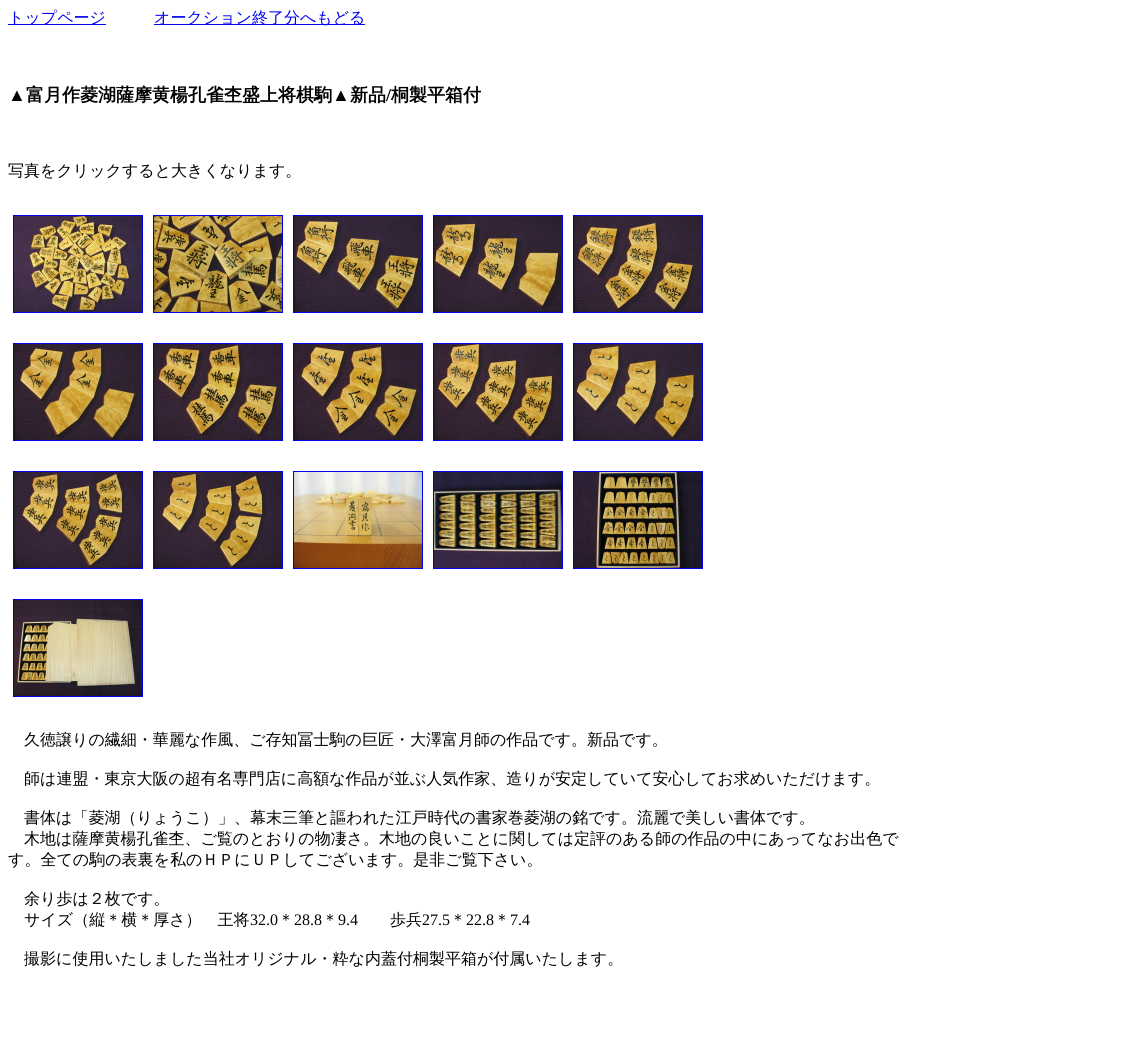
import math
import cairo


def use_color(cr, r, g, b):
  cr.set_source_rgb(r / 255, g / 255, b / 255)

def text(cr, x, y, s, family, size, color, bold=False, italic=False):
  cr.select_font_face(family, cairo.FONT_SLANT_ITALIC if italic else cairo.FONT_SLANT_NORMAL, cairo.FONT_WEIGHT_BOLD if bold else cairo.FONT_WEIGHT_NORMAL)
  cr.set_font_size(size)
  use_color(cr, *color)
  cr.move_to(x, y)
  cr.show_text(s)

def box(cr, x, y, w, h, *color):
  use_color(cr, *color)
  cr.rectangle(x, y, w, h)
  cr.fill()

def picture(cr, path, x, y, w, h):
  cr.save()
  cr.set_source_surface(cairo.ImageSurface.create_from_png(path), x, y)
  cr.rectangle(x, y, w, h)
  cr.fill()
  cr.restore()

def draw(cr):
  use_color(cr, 255, 255, 255)
  cr.paint()
  box(cr, 8, 24, 98, 1, 0, 0, 238)
  box(cr, 154, 24, 211, 1, 0, 0, 238)
  cr.rectangle(13.5, 215.5, 129, 97)
  cr.set_line_width(1)
  cr.stroke()
  picture(cr, "img_01.png", 14, 216, 128, 96)
  cr.rectangle(153.5, 215.5, 129, 97)
  cr.stroke()
  picture(cr, "img_02.png", 154, 216, 128, 96)
  cr.rectangle(293.5, 215.5, 129, 97)
  cr.stroke()
  picture(cr, "img_03.png", 294, 216, 128, 96)
  cr.rectangle(433.5, 215.5, 129, 97)
  cr.stroke()
  picture(cr, "img_04.png", 434, 216, 128, 96)
  cr.rectangle(573.5, 215.5, 129, 97)
  cr.stroke()
  picture(cr, "img_05.png", 574, 216, 128, 96)
  cr.rectangle(13.5, 343.5, 129, 97)
  cr.stroke()
  picture(cr, "img_06.png", 14, 344, 128, 96)
  cr.rectangle(153.5, 343.5, 129, 97)
  cr.stroke()
  picture(cr, "img_07.png", 154, 344, 128, 96)
  cr.rectangle(293.5, 343.5, 129, 97)
  cr.stroke()
  picture(cr, "img_08.png", 294, 344, 128, 96)
  cr.rectangle(433.5, 343.5, 129, 97)
  cr.stroke()
  picture(cr, "img_09.png", 434, 344, 128, 96)
  cr.rectangle(573.5, 343.5, 129, 97)
  cr.stroke()
  picture(cr, "img_10.png", 574, 344, 128, 96)
  cr.rectangle(13.5, 471.5, 129, 97)
  cr.stroke()
  picture(cr, "img_11.png", 14, 472, 128, 96)
  cr.rectangle(153.5, 471.5, 129, 97)
  cr.stroke()
  picture(cr, "img_12.png", 154, 472, 128, 96)
  cr.rectangle(293.5, 471.5, 129, 97)
  cr.stroke()
  picture(cr, "img_13.png", 294, 472, 128, 96)
  cr.rectangle(433.5, 471.5, 129, 97)
  cr.stroke()
  picture(cr, "img_14.png", 434, 472, 128, 96)
  cr.rectangle(573.5, 471.5, 129, 97)
  cr.stroke()
  picture(cr, "img_15.png", 574, 472, 128, 96)
  cr.rectangle(13.5, 599.5, 129, 97)
  cr.stroke()
  picture(cr, "img_16.png", 14, 600, 128, 96)
  text(cr, 8, 23, "トップページ", "WenQuanYi Zen Hei Medium", 16, (0, 0, 238))
  text(cr, 154, 23, "オークション終了分へもどる", "WenQuanYi Zen Hei Medium", 16, (0, 0, 238))
  text(cr, 8, 101, "▲", "Liberation Serif", 18, (0, 0, 0), bold=True)
  text(cr, 26, 101, "富月作菱湖薩摩黄楊孔雀杢盛上将棋駒", "WenQuanYi Zen Hei", 18, (0, 0, 0), bold=True)
  text(cr, 332, 101, "▲", "Liberation Serif", 18, (0, 0, 0), bold=True)
  text(cr, 350, 101, "新品", "WenQuanYi Zen Hei", 18, (0, 0, 0), bold=True)
  text(cr, 386, 101, "/", "Liberation Serif", 18, (0, 0, 0), bold=True)
  text(cr, 391, 101, "桐製平箱付", "WenQuanYi Zen Hei", 18, (0, 0, 0), bold=True)
  text(cr, 8, 176, "写真をクリックすると大きくなります。", "WenQuanYi Zen Hei Medium", 16, (0, 0, 0))
  text(cr, 24, 745, "久徳譲りの繊細・華麗な作風、ご存知冨士駒の巨匠・大澤富月師の作品です。新品です。", "WenQuanYi Zen Hei Medium", 16, (0, 0, 0))
  text(cr, 24, 784, "師は連盟・東京大阪の超有名専門店に高額な作品が並ぶ人気作家、造りが安定していて安心してお求めいただけます。", "WenQuanYi Zen Hei Medium", 16, (0, 0, 0))
  text(cr, 24, 823, "書体は「菱湖（りょうこ）」、幕末三筆と謳われた江戸時代の書家巻菱湖の銘です。流麗で美しい書体です。", "WenQuanYi Zen Hei Medium", 16, (0, 0, 0))
  text(cr, 24, 844, "木地は薩摩黄楊孔雀杢、ご覧のとおりの物凄さ。木地の良いことに関しては定評のある師の作品の中にあってなお出色で", "WenQuanYi Zen Hei Medium", 16, (0, 0, 0))
  text(cr, 8, 865, "す。全ての駒の表裏を私のＨＰにＵＰしてございます。是非ご覧下さい。", "WenQuanYi Zen Hei Medium", 16, (0, 0, 0))
  text(cr, 24, 904, "余り歩は２枚です。", "WenQuanYi Zen Hei Medium", 16, (0, 0, 0))
  text(cr, 24, 925, "サイズ（縦＊横＊厚さ）　王将", "WenQuanYi Zen Hei Medium", 16, (0, 0, 0))
  text(cr, 250, 925, "32.0", "Liberation Serif", 16, (0, 0, 0))
  text(cr, 278, 925, "＊", "WenQuanYi Zen Hei Medium", 16, (0, 0, 0))
  text(cr, 294, 925, "28.8", "Liberation Serif", 16, (0, 0, 0))
  text(cr, 322, 925, "＊", "WenQuanYi Zen Hei Medium", 16, (0, 0, 0))
  text(cr, 338, 925, "9.4", "Liberation Serif", 16, (0, 0, 0))
  text(cr, 390, 925, "歩兵", "WenQuanYi Zen Hei Medium", 16, (0, 0, 0))
  text(cr, 422, 925, "27.5", "Liberation Serif", 16, (0, 0, 0))
  text(cr, 450, 925, "＊", "WenQuanYi Zen Hei Medium", 16, (0, 0, 0))
  text(cr, 466, 925, "22.8", "Liberation Serif", 16, (0, 0, 0))
  text(cr, 494, 925, "＊", "WenQuanYi Zen Hei Medium", 16, (0, 0, 0))
  text(cr, 510, 925, "7.4", "Liberation Serif", 16, (0, 0, 0))
  text(cr, 24, 964, "撮影に使用いたしました当社オリジナル・粋な内蓋付桐製平箱が付属いたします。", "WenQuanYi Zen Hei Medium", 16, (0, 0, 0))


surface = cairo.ImageSurface(cairo.FORMAT_RGB24, 1125, 1046)
cr = cairo.Context(surface)
options = cairo.FontOptions()
options.set_hint_metrics(cairo.HINT_METRICS_OFF)
options.set_hint_style(cairo.HINT_STYLE_NONE)
cr.set_font_options(options)
cr.set_miter_limit(4)
draw(cr)
surface.write_to_png("out.png")
